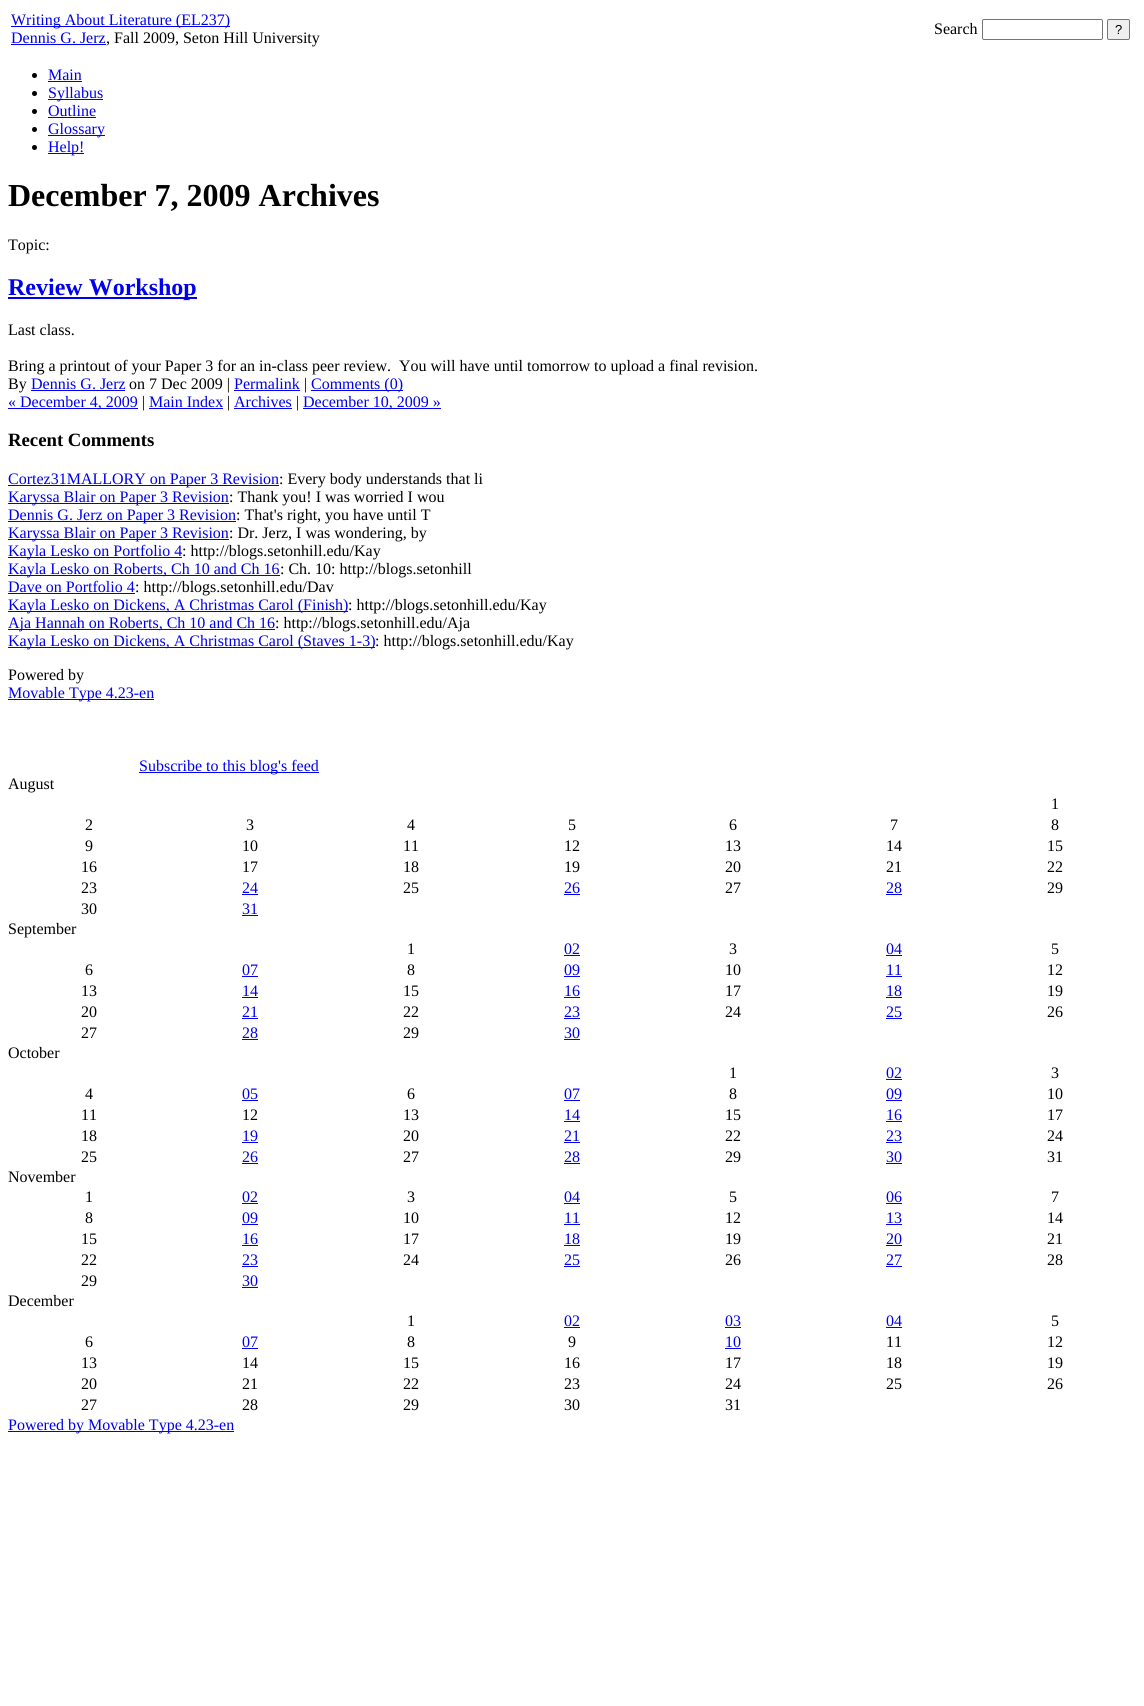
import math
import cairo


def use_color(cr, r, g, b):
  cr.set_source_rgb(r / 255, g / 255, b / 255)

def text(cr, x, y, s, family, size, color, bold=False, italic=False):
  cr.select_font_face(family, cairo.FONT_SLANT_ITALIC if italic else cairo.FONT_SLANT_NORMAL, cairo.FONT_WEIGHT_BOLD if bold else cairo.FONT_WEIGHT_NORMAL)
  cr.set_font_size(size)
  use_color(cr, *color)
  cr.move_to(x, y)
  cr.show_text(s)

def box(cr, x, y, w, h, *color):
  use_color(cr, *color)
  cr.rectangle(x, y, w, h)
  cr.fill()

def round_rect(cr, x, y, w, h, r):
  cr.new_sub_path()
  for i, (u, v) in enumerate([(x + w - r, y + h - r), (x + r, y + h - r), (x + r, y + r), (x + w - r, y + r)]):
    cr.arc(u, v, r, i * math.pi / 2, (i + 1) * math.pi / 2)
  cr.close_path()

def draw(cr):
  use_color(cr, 255, 255, 255)
  cr.paint()
  box(cr, 11, 26, 219, 1, 0, 0, 238)
  box(cr, 11, 44, 95, 1, 0, 0, 238)
  round_rect(cr, 982.5, 19.5, 120, 20, 1.5)
  use_color(cr, 118, 118, 118)
  cr.set_line_width(1)
  cr.stroke()
  use_color(cr, 239, 239, 239)
  round_rect(cr, 1107.5, 19.5, 22, 20, 1.5)
  cr.fill_preserve()
  use_color(cr, 118, 118, 118)
  cr.stroke()
  use_color(cr, 0, 0, 0)
  cr.arc(34.5, 75.5, 2.5, 0, 2 * math.pi)
  cr.fill()
  box(cr, 48, 81, 34, 1, 0, 0, 238)
  use_color(cr, 0, 0, 0)
  cr.arc(34.5, 93.5, 2.5, 0, 2 * math.pi)
  cr.fill()
  box(cr, 48, 99, 55, 1, 0, 0, 238)
  use_color(cr, 0, 0, 0)
  cr.arc(34.5, 111.5, 2.5, 0, 2 * math.pi)
  cr.fill()
  box(cr, 48, 117, 48, 1, 0, 0, 238)
  use_color(cr, 0, 0, 0)
  cr.arc(34.5, 129.5, 2.5, 0, 2 * math.pi)
  cr.fill()
  box(cr, 48, 135, 57, 1, 0, 0, 238)
  use_color(cr, 0, 0, 0)
  cr.arc(34.5, 147.5, 2.5, 0, 2 * math.pi)
  cr.fill()
  box(cr, 48, 153, 36, 1, 0, 0, 238)
  box(cr, 8, 297, 189, 2, 0, 0, 238)
  box(cr, 31, 390, 94, 1, 0, 0, 238)
  box(cr, 234, 390, 66, 1, 0, 0, 238)
  box(cr, 311, 390, 92, 1, 0, 0, 238)
  box(cr, 8, 408, 130, 1, 0, 0, 238)
  box(cr, 149, 408, 74, 1, 0, 0, 238)
  box(cr, 234, 408, 58, 1, 0, 0, 238)
  box(cr, 303, 408, 138, 1, 0, 0, 238)
  box(cr, 8, 485, 271, 1, 0, 0, 238)
  box(cr, 8, 503, 221, 1, 0, 0, 238)
  box(cr, 8, 521, 228, 1, 0, 0, 238)
  box(cr, 8, 539, 221, 1, 0, 0, 238)
  box(cr, 8, 557, 174, 1, 0, 0, 238)
  box(cr, 8, 575, 272, 1, 0, 0, 238)
  box(cr, 8, 593, 127, 1, 0, 0, 238)
  box(cr, 8, 611, 340, 1, 0, 0, 238)
  box(cr, 8, 629, 267, 1, 0, 0, 238)
  box(cr, 8, 647, 367, 1, 0, 0, 238)
  box(cr, 8, 699, 146, 1, 0, 0, 238)
  box(cr, 139, 772, 180, 1, 0, 0, 238)
  box(cr, 242, 894, 16, 1, 0, 0, 238)
  box(cr, 564, 894, 16, 1, 0, 0, 238)
  box(cr, 886, 894, 16, 1, 0, 0, 238)
  box(cr, 242, 915, 16, 1, 0, 0, 238)
  box(cr, 564, 955, 16, 1, 0, 0, 238)
  box(cr, 886, 955, 16, 1, 0, 0, 238)
  box(cr, 242, 976, 16, 1, 0, 0, 238)
  box(cr, 564, 976, 16, 1, 0, 0, 238)
  box(cr, 886, 976, 16, 1, 0, 0, 238)
  box(cr, 242, 997, 16, 1, 0, 0, 238)
  box(cr, 564, 997, 16, 1, 0, 0, 238)
  box(cr, 886, 997, 16, 1, 0, 0, 238)
  box(cr, 242, 1018, 16, 1, 0, 0, 238)
  box(cr, 564, 1018, 16, 1, 0, 0, 238)
  box(cr, 886, 1018, 16, 1, 0, 0, 238)
  box(cr, 242, 1039, 16, 1, 0, 0, 238)
  box(cr, 564, 1039, 16, 1, 0, 0, 238)
  box(cr, 886, 1079, 16, 1, 0, 0, 238)
  box(cr, 242, 1100, 16, 1, 0, 0, 238)
  box(cr, 564, 1100, 16, 1, 0, 0, 238)
  box(cr, 886, 1100, 16, 1, 0, 0, 238)
  box(cr, 564, 1121, 16, 1, 0, 0, 238)
  box(cr, 886, 1121, 16, 1, 0, 0, 238)
  box(cr, 242, 1142, 16, 1, 0, 0, 238)
  box(cr, 564, 1142, 16, 1, 0, 0, 238)
  box(cr, 886, 1142, 16, 1, 0, 0, 238)
  box(cr, 242, 1163, 16, 1, 0, 0, 238)
  box(cr, 564, 1163, 16, 1, 0, 0, 238)
  box(cr, 886, 1163, 16, 1, 0, 0, 238)
  box(cr, 242, 1203, 16, 1, 0, 0, 238)
  box(cr, 564, 1203, 16, 1, 0, 0, 238)
  box(cr, 886, 1203, 16, 1, 0, 0, 238)
  box(cr, 242, 1224, 16, 1, 0, 0, 238)
  box(cr, 564, 1224, 16, 1, 0, 0, 238)
  box(cr, 886, 1224, 16, 1, 0, 0, 238)
  box(cr, 242, 1245, 16, 1, 0, 0, 238)
  box(cr, 564, 1245, 16, 1, 0, 0, 238)
  box(cr, 886, 1245, 16, 1, 0, 0, 238)
  box(cr, 242, 1266, 16, 1, 0, 0, 238)
  box(cr, 564, 1266, 16, 1, 0, 0, 238)
  box(cr, 886, 1266, 16, 1, 0, 0, 238)
  box(cr, 242, 1287, 16, 1, 0, 0, 238)
  box(cr, 564, 1327, 16, 1, 0, 0, 238)
  box(cr, 725, 1327, 16, 1, 0, 0, 238)
  box(cr, 886, 1327, 16, 1, 0, 0, 238)
  box(cr, 242, 1348, 16, 1, 0, 0, 238)
  box(cr, 725, 1348, 16, 1, 0, 0, 238)
  box(cr, 8, 1431, 226, 1, 0, 0, 238)
  text(cr, 11, 25, "Writing About Literature (EL237)", "Liberation Serif", 16, (0, 0, 238))
  text(cr, 11, 43, "Dennis G. Jerz", "Liberation Serif", 16, (0, 0, 238))
  text(cr, 106, 43, ", Fall 2009, Seton Hill University", "Liberation Serif", 16, (0, 0, 0))
  text(cr, 934, 34, "Search", "Liberation Serif", 16, (0, 0, 0))
  text(cr, 1115, 34, "?", "Liberation Sans", 13, (0, 0, 0))
  text(cr, 48, 80, "Main", "Liberation Serif", 16, (0, 0, 238))
  text(cr, 48, 98, "Syllabus", "Liberation Serif", 16, (0, 0, 238))
  text(cr, 48, 116, "Outline", "Liberation Serif", 16, (0, 0, 238))
  text(cr, 48, 134, "Glossary", "Liberation Serif", 16, (0, 0, 238))
  text(cr, 48, 152, "Help!", "Liberation Serif", 16, (0, 0, 238))
  text(cr, 8, 206, "December 7, 2009 Archives", "Liberation Serif", 32, (0, 0, 0), bold=True)
  text(cr, 8, 250, "Topic:", "Liberation Serif", 16, (0, 0, 0))
  text(cr, 8, 295, "Review Workshop", "Liberation Serif", 24, (0, 0, 238), bold=True)
  text(cr, 8, 335, "Last class.", "Liberation Serif", 16, (0, 0, 0))
  text(cr, 8, 371, "Bring a printout of your Paper 3 for an in-class peer review.  You will have until tomorrow to upload a final revision.", "Liberation Serif", 16, (0, 0, 0))
  text(cr, 8, 389, "By", "Liberation Serif", 16, (0, 0, 0))
  text(cr, 31, 389, "Dennis G. Jerz", "Liberation Serif", 16, (0, 0, 238))
  text(cr, 129, 389, "on 7 Dec 2009 |", "Liberation Serif", 16, (0, 0, 0))
  text(cr, 234, 389, "Permalink", "Liberation Serif", 16, (0, 0, 238))
  text(cr, 304, 389, "|", "Liberation Serif", 16, (0, 0, 0))
  text(cr, 311, 389, "Comments (0)", "Liberation Serif", 16, (0, 0, 238))
  text(cr, 8, 407, "« December 4, 2009", "Liberation Serif", 16, (0, 0, 238))
  text(cr, 142, 407, "|", "Liberation Serif", 16, (0, 0, 0))
  text(cr, 149, 407, "Main Index", "Liberation Serif", 16, (0, 0, 238))
  text(cr, 227, 407, "|", "Liberation Serif", 16, (0, 0, 0))
  text(cr, 234, 407, "Archives", "Liberation Serif", 16, (0, 0, 238))
  text(cr, 296, 407, "|", "Liberation Serif", 16, (0, 0, 0))
  text(cr, 303, 407, "December 10, 2009 »", "Liberation Serif", 16, (0, 0, 238))
  text(cr, 8, 446, "Recent Comments", "Liberation Serif", 18.75, (0, 0, 0), bold=True)
  text(cr, 8, 484, "Cortez31MALLORY on Paper 3 Revision", "Liberation Serif", 16, (0, 0, 238))
  text(cr, 279, 484, ": Every body understands that li", "Liberation Serif", 16, (0, 0, 0))
  text(cr, 8, 502, "Karyssa Blair on Paper 3 Revision", "Liberation Serif", 16, (0, 0, 238))
  text(cr, 229, 502, ": Thank you! I was worried I wou", "Liberation Serif", 16, (0, 0, 0))
  text(cr, 8, 520, "Dennis G. Jerz on Paper 3 Revision", "Liberation Serif", 16, (0, 0, 238))
  text(cr, 236, 520, ": That's right, you have until T", "Liberation Serif", 16, (0, 0, 0))
  text(cr, 8, 538, "Karyssa Blair on Paper 3 Revision", "Liberation Serif", 16, (0, 0, 238))
  text(cr, 229, 538, ": Dr. Jerz, I was wondering, by", "Liberation Serif", 16, (0, 0, 0))
  text(cr, 8, 556, "Kayla Lesko on Portfolio 4", "Liberation Serif", 16, (0, 0, 238))
  text(cr, 182, 556, ": http://blogs.setonhill.edu/Kay", "Liberation Serif", 16, (0, 0, 0))
  text(cr, 8, 574, "Kayla Lesko on Roberts, Ch 10 and Ch 16", "Liberation Serif", 16, (0, 0, 238))
  text(cr, 280, 574, ": Ch. 10: http://blogs.setonhill", "Liberation Serif", 16, (0, 0, 0))
  text(cr, 8, 592, "Dave on Portfolio 4", "Liberation Serif", 16, (0, 0, 238))
  text(cr, 135, 592, ": http://blogs.setonhill.edu/Dav", "Liberation Serif", 16, (0, 0, 0))
  text(cr, 8, 610, "Kayla Lesko on Dickens, A Christmas Carol (Finish)", "Liberation Serif", 16, (0, 0, 238))
  text(cr, 348, 610, ": http://blogs.setonhill.edu/Kay", "Liberation Serif", 16, (0, 0, 0))
  text(cr, 8, 628, "Aja Hannah on Roberts, Ch 10 and Ch 16", "Liberation Serif", 16, (0, 0, 238))
  text(cr, 275, 628, ": http://blogs.setonhill.edu/Aja", "Liberation Serif", 16, (0, 0, 0))
  text(cr, 8, 646, "Kayla Lesko on Dickens, A Christmas Carol (Staves 1-3)", "Liberation Serif", 16, (0, 0, 238))
  text(cr, 375, 646, ": http://blogs.setonhill.edu/Kay", "Liberation Serif", 16, (0, 0, 0))
  text(cr, 8, 680, "Powered by", "Liberation Serif", 16, (0, 0, 0))
  text(cr, 8, 698, "Movable Type 4.23-en", "Liberation Serif", 16, (0, 0, 238))
  text(cr, 139, 771, "Subscribe to this blog's feed", "Liberation Serif", 16, (0, 0, 238))
  text(cr, 8, 789, "August", "Liberation Serif", 16, (0, 0, 0))
  text(cr, 1051, 809, "1", "Liberation Serif", 16, (0, 0, 0))
  text(cr, 85, 830, "2", "Liberation Serif", 16, (0, 0, 0))
  text(cr, 246, 830, "3", "Liberation Serif", 16, (0, 0, 0))
  text(cr, 407, 830, "4", "Liberation Serif", 16, (0, 0, 0))
  text(cr, 568, 830, "5", "Liberation Serif", 16, (0, 0, 0))
  text(cr, 729, 830, "6", "Liberation Serif", 16, (0, 0, 0))
  text(cr, 890, 830, "7", "Liberation Serif", 16, (0, 0, 0))
  text(cr, 1051, 830, "8", "Liberation Serif", 16, (0, 0, 0))
  text(cr, 85, 851, "9", "Liberation Serif", 16, (0, 0, 0))
  text(cr, 242, 851, "10", "Liberation Serif", 16, (0, 0, 0))
  text(cr, 403, 851, "11", "Liberation Serif", 16, (0, 0, 0))
  text(cr, 564, 851, "12", "Liberation Serif", 16, (0, 0, 0))
  text(cr, 725, 851, "13", "Liberation Serif", 16, (0, 0, 0))
  text(cr, 886, 851, "14", "Liberation Serif", 16, (0, 0, 0))
  text(cr, 1047, 851, "15", "Liberation Serif", 16, (0, 0, 0))
  text(cr, 81, 872, "16", "Liberation Serif", 16, (0, 0, 0))
  text(cr, 242, 872, "17", "Liberation Serif", 16, (0, 0, 0))
  text(cr, 403, 872, "18", "Liberation Serif", 16, (0, 0, 0))
  text(cr, 564, 872, "19", "Liberation Serif", 16, (0, 0, 0))
  text(cr, 725, 872, "20", "Liberation Serif", 16, (0, 0, 0))
  text(cr, 886, 872, "21", "Liberation Serif", 16, (0, 0, 0))
  text(cr, 1047, 872, "22", "Liberation Serif", 16, (0, 0, 0))
  text(cr, 81, 893, "23", "Liberation Serif", 16, (0, 0, 0))
  text(cr, 242, 893, "24", "Liberation Serif", 16, (0, 0, 238))
  text(cr, 403, 893, "25", "Liberation Serif", 16, (0, 0, 0))
  text(cr, 564, 893, "26", "Liberation Serif", 16, (0, 0, 238))
  text(cr, 725, 893, "27", "Liberation Serif", 16, (0, 0, 0))
  text(cr, 886, 893, "28", "Liberation Serif", 16, (0, 0, 238))
  text(cr, 1047, 893, "29", "Liberation Serif", 16, (0, 0, 0))
  text(cr, 81, 914, "30", "Liberation Serif", 16, (0, 0, 0))
  text(cr, 242, 914, "31", "Liberation Serif", 16, (0, 0, 238))
  text(cr, 8, 934, "September", "Liberation Serif", 16, (0, 0, 0))
  text(cr, 407, 954, "1", "Liberation Serif", 16, (0, 0, 0))
  text(cr, 564, 954, "02", "Liberation Serif", 16, (0, 0, 238))
  text(cr, 729, 954, "3", "Liberation Serif", 16, (0, 0, 0))
  text(cr, 886, 954, "04", "Liberation Serif", 16, (0, 0, 238))
  text(cr, 1051, 954, "5", "Liberation Serif", 16, (0, 0, 0))
  text(cr, 85, 975, "6", "Liberation Serif", 16, (0, 0, 0))
  text(cr, 242, 975, "07", "Liberation Serif", 16, (0, 0, 238))
  text(cr, 407, 975, "8", "Liberation Serif", 16, (0, 0, 0))
  text(cr, 564, 975, "09", "Liberation Serif", 16, (0, 0, 238))
  text(cr, 725, 975, "10", "Liberation Serif", 16, (0, 0, 0))
  text(cr, 886, 975, "11", "Liberation Serif", 16, (0, 0, 238))
  text(cr, 1047, 975, "12", "Liberation Serif", 16, (0, 0, 0))
  text(cr, 81, 996, "13", "Liberation Serif", 16, (0, 0, 0))
  text(cr, 242, 996, "14", "Liberation Serif", 16, (0, 0, 238))
  text(cr, 403, 996, "15", "Liberation Serif", 16, (0, 0, 0))
  text(cr, 564, 996, "16", "Liberation Serif", 16, (0, 0, 238))
  text(cr, 725, 996, "17", "Liberation Serif", 16, (0, 0, 0))
  text(cr, 886, 996, "18", "Liberation Serif", 16, (0, 0, 238))
  text(cr, 1047, 996, "19", "Liberation Serif", 16, (0, 0, 0))
  text(cr, 81, 1017, "20", "Liberation Serif", 16, (0, 0, 0))
  text(cr, 242, 1017, "21", "Liberation Serif", 16, (0, 0, 238))
  text(cr, 403, 1017, "22", "Liberation Serif", 16, (0, 0, 0))
  text(cr, 564, 1017, "23", "Liberation Serif", 16, (0, 0, 238))
  text(cr, 725, 1017, "24", "Liberation Serif", 16, (0, 0, 0))
  text(cr, 886, 1017, "25", "Liberation Serif", 16, (0, 0, 238))
  text(cr, 1047, 1017, "26", "Liberation Serif", 16, (0, 0, 0))
  text(cr, 81, 1038, "27", "Liberation Serif", 16, (0, 0, 0))
  text(cr, 242, 1038, "28", "Liberation Serif", 16, (0, 0, 238))
  text(cr, 403, 1038, "29", "Liberation Serif", 16, (0, 0, 0))
  text(cr, 564, 1038, "30", "Liberation Serif", 16, (0, 0, 238))
  text(cr, 8, 1058, "October", "Liberation Serif", 16, (0, 0, 0))
  text(cr, 729, 1078, "1", "Liberation Serif", 16, (0, 0, 0))
  text(cr, 886, 1078, "02", "Liberation Serif", 16, (0, 0, 238))
  text(cr, 1051, 1078, "3", "Liberation Serif", 16, (0, 0, 0))
  text(cr, 85, 1099, "4", "Liberation Serif", 16, (0, 0, 0))
  text(cr, 242, 1099, "05", "Liberation Serif", 16, (0, 0, 238))
  text(cr, 407, 1099, "6", "Liberation Serif", 16, (0, 0, 0))
  text(cr, 564, 1099, "07", "Liberation Serif", 16, (0, 0, 238))
  text(cr, 729, 1099, "8", "Liberation Serif", 16, (0, 0, 0))
  text(cr, 886, 1099, "09", "Liberation Serif", 16, (0, 0, 238))
  text(cr, 1047, 1099, "10", "Liberation Serif", 16, (0, 0, 0))
  text(cr, 81, 1120, "11", "Liberation Serif", 16, (0, 0, 0))
  text(cr, 242, 1120, "12", "Liberation Serif", 16, (0, 0, 0))
  text(cr, 403, 1120, "13", "Liberation Serif", 16, (0, 0, 0))
  text(cr, 564, 1120, "14", "Liberation Serif", 16, (0, 0, 238))
  text(cr, 725, 1120, "15", "Liberation Serif", 16, (0, 0, 0))
  text(cr, 886, 1120, "16", "Liberation Serif", 16, (0, 0, 238))
  text(cr, 1047, 1120, "17", "Liberation Serif", 16, (0, 0, 0))
  text(cr, 81, 1141, "18", "Liberation Serif", 16, (0, 0, 0))
  text(cr, 242, 1141, "19", "Liberation Serif", 16, (0, 0, 238))
  text(cr, 403, 1141, "20", "Liberation Serif", 16, (0, 0, 0))
  text(cr, 564, 1141, "21", "Liberation Serif", 16, (0, 0, 238))
  text(cr, 725, 1141, "22", "Liberation Serif", 16, (0, 0, 0))
  text(cr, 886, 1141, "23", "Liberation Serif", 16, (0, 0, 238))
  text(cr, 1047, 1141, "24", "Liberation Serif", 16, (0, 0, 0))
  text(cr, 81, 1162, "25", "Liberation Serif", 16, (0, 0, 0))
  text(cr, 242, 1162, "26", "Liberation Serif", 16, (0, 0, 238))
  text(cr, 403, 1162, "27", "Liberation Serif", 16, (0, 0, 0))
  text(cr, 564, 1162, "28", "Liberation Serif", 16, (0, 0, 238))
  text(cr, 725, 1162, "29", "Liberation Serif", 16, (0, 0, 0))
  text(cr, 886, 1162, "30", "Liberation Serif", 16, (0, 0, 238))
  text(cr, 1047, 1162, "31", "Liberation Serif", 16, (0, 0, 0))
  text(cr, 8, 1182, "November", "Liberation Serif", 16, (0, 0, 0))
  text(cr, 85, 1202, "1", "Liberation Serif", 16, (0, 0, 0))
  text(cr, 242, 1202, "02", "Liberation Serif", 16, (0, 0, 238))
  text(cr, 407, 1202, "3", "Liberation Serif", 16, (0, 0, 0))
  text(cr, 564, 1202, "04", "Liberation Serif", 16, (0, 0, 238))
  text(cr, 729, 1202, "5", "Liberation Serif", 16, (0, 0, 0))
  text(cr, 886, 1202, "06", "Liberation Serif", 16, (0, 0, 238))
  text(cr, 1051, 1202, "7", "Liberation Serif", 16, (0, 0, 0))
  text(cr, 85, 1223, "8", "Liberation Serif", 16, (0, 0, 0))
  text(cr, 242, 1223, "09", "Liberation Serif", 16, (0, 0, 238))
  text(cr, 403, 1223, "10", "Liberation Serif", 16, (0, 0, 0))
  text(cr, 564, 1223, "11", "Liberation Serif", 16, (0, 0, 238))
  text(cr, 725, 1223, "12", "Liberation Serif", 16, (0, 0, 0))
  text(cr, 886, 1223, "13", "Liberation Serif", 16, (0, 0, 238))
  text(cr, 1047, 1223, "14", "Liberation Serif", 16, (0, 0, 0))
  text(cr, 81, 1244, "15", "Liberation Serif", 16, (0, 0, 0))
  text(cr, 242, 1244, "16", "Liberation Serif", 16, (0, 0, 238))
  text(cr, 403, 1244, "17", "Liberation Serif", 16, (0, 0, 0))
  text(cr, 564, 1244, "18", "Liberation Serif", 16, (0, 0, 238))
  text(cr, 725, 1244, "19", "Liberation Serif", 16, (0, 0, 0))
  text(cr, 886, 1244, "20", "Liberation Serif", 16, (0, 0, 238))
  text(cr, 1047, 1244, "21", "Liberation Serif", 16, (0, 0, 0))
  text(cr, 81, 1265, "22", "Liberation Serif", 16, (0, 0, 0))
  text(cr, 242, 1265, "23", "Liberation Serif", 16, (0, 0, 238))
  text(cr, 403, 1265, "24", "Liberation Serif", 16, (0, 0, 0))
  text(cr, 564, 1265, "25", "Liberation Serif", 16, (0, 0, 238))
  text(cr, 725, 1265, "26", "Liberation Serif", 16, (0, 0, 0))
  text(cr, 886, 1265, "27", "Liberation Serif", 16, (0, 0, 238))
  text(cr, 1047, 1265, "28", "Liberation Serif", 16, (0, 0, 0))
  text(cr, 81, 1286, "29", "Liberation Serif", 16, (0, 0, 0))
  text(cr, 242, 1286, "30", "Liberation Serif", 16, (0, 0, 238))
  text(cr, 8, 1306, "December", "Liberation Serif", 16, (0, 0, 0))
  text(cr, 407, 1326, "1", "Liberation Serif", 16, (0, 0, 0))
  text(cr, 564, 1326, "02", "Liberation Serif", 16, (0, 0, 238))
  text(cr, 725, 1326, "03", "Liberation Serif", 16, (0, 0, 238))
  text(cr, 886, 1326, "04", "Liberation Serif", 16, (0, 0, 238))
  text(cr, 1051, 1326, "5", "Liberation Serif", 16, (0, 0, 0))
  text(cr, 85, 1347, "6", "Liberation Serif", 16, (0, 0, 0))
  text(cr, 242, 1347, "07", "Liberation Serif", 16, (0, 0, 238))
  text(cr, 407, 1347, "8", "Liberation Serif", 16, (0, 0, 0))
  text(cr, 568, 1347, "9", "Liberation Serif", 16, (0, 0, 0))
  text(cr, 725, 1347, "10", "Liberation Serif", 16, (0, 0, 238))
  text(cr, 886, 1347, "11", "Liberation Serif", 16, (0, 0, 0))
  text(cr, 1047, 1347, "12", "Liberation Serif", 16, (0, 0, 0))
  text(cr, 81, 1368, "13", "Liberation Serif", 16, (0, 0, 0))
  text(cr, 242, 1368, "14", "Liberation Serif", 16, (0, 0, 0))
  text(cr, 403, 1368, "15", "Liberation Serif", 16, (0, 0, 0))
  text(cr, 564, 1368, "16", "Liberation Serif", 16, (0, 0, 0))
  text(cr, 725, 1368, "17", "Liberation Serif", 16, (0, 0, 0))
  text(cr, 886, 1368, "18", "Liberation Serif", 16, (0, 0, 0))
  text(cr, 1047, 1368, "19", "Liberation Serif", 16, (0, 0, 0))
  text(cr, 81, 1389, "20", "Liberation Serif", 16, (0, 0, 0))
  text(cr, 242, 1389, "21", "Liberation Serif", 16, (0, 0, 0))
  text(cr, 403, 1389, "22", "Liberation Serif", 16, (0, 0, 0))
  text(cr, 564, 1389, "23", "Liberation Serif", 16, (0, 0, 0))
  text(cr, 725, 1389, "24", "Liberation Serif", 16, (0, 0, 0))
  text(cr, 886, 1389, "25", "Liberation Serif", 16, (0, 0, 0))
  text(cr, 1047, 1389, "26", "Liberation Serif", 16, (0, 0, 0))
  text(cr, 81, 1410, "27", "Liberation Serif", 16, (0, 0, 0))
  text(cr, 242, 1410, "28", "Liberation Serif", 16, (0, 0, 0))
  text(cr, 403, 1410, "29", "Liberation Serif", 16, (0, 0, 0))
  text(cr, 564, 1410, "30", "Liberation Serif", 16, (0, 0, 0))
  text(cr, 725, 1410, "31", "Liberation Serif", 16, (0, 0, 0))
  text(cr, 8, 1430, "Powered by Movable Type 4.23-en", "Liberation Serif", 16, (0, 0, 238))


surface = cairo.ImageSurface(cairo.FORMAT_RGB24, 1144, 1706)
cr = cairo.Context(surface)
options = cairo.FontOptions()
options.set_hint_metrics(cairo.HINT_METRICS_OFF)
options.set_hint_style(cairo.HINT_STYLE_NONE)
cr.set_font_options(options)
cr.set_miter_limit(4)
draw(cr)
surface.write_to_png("out.png")
